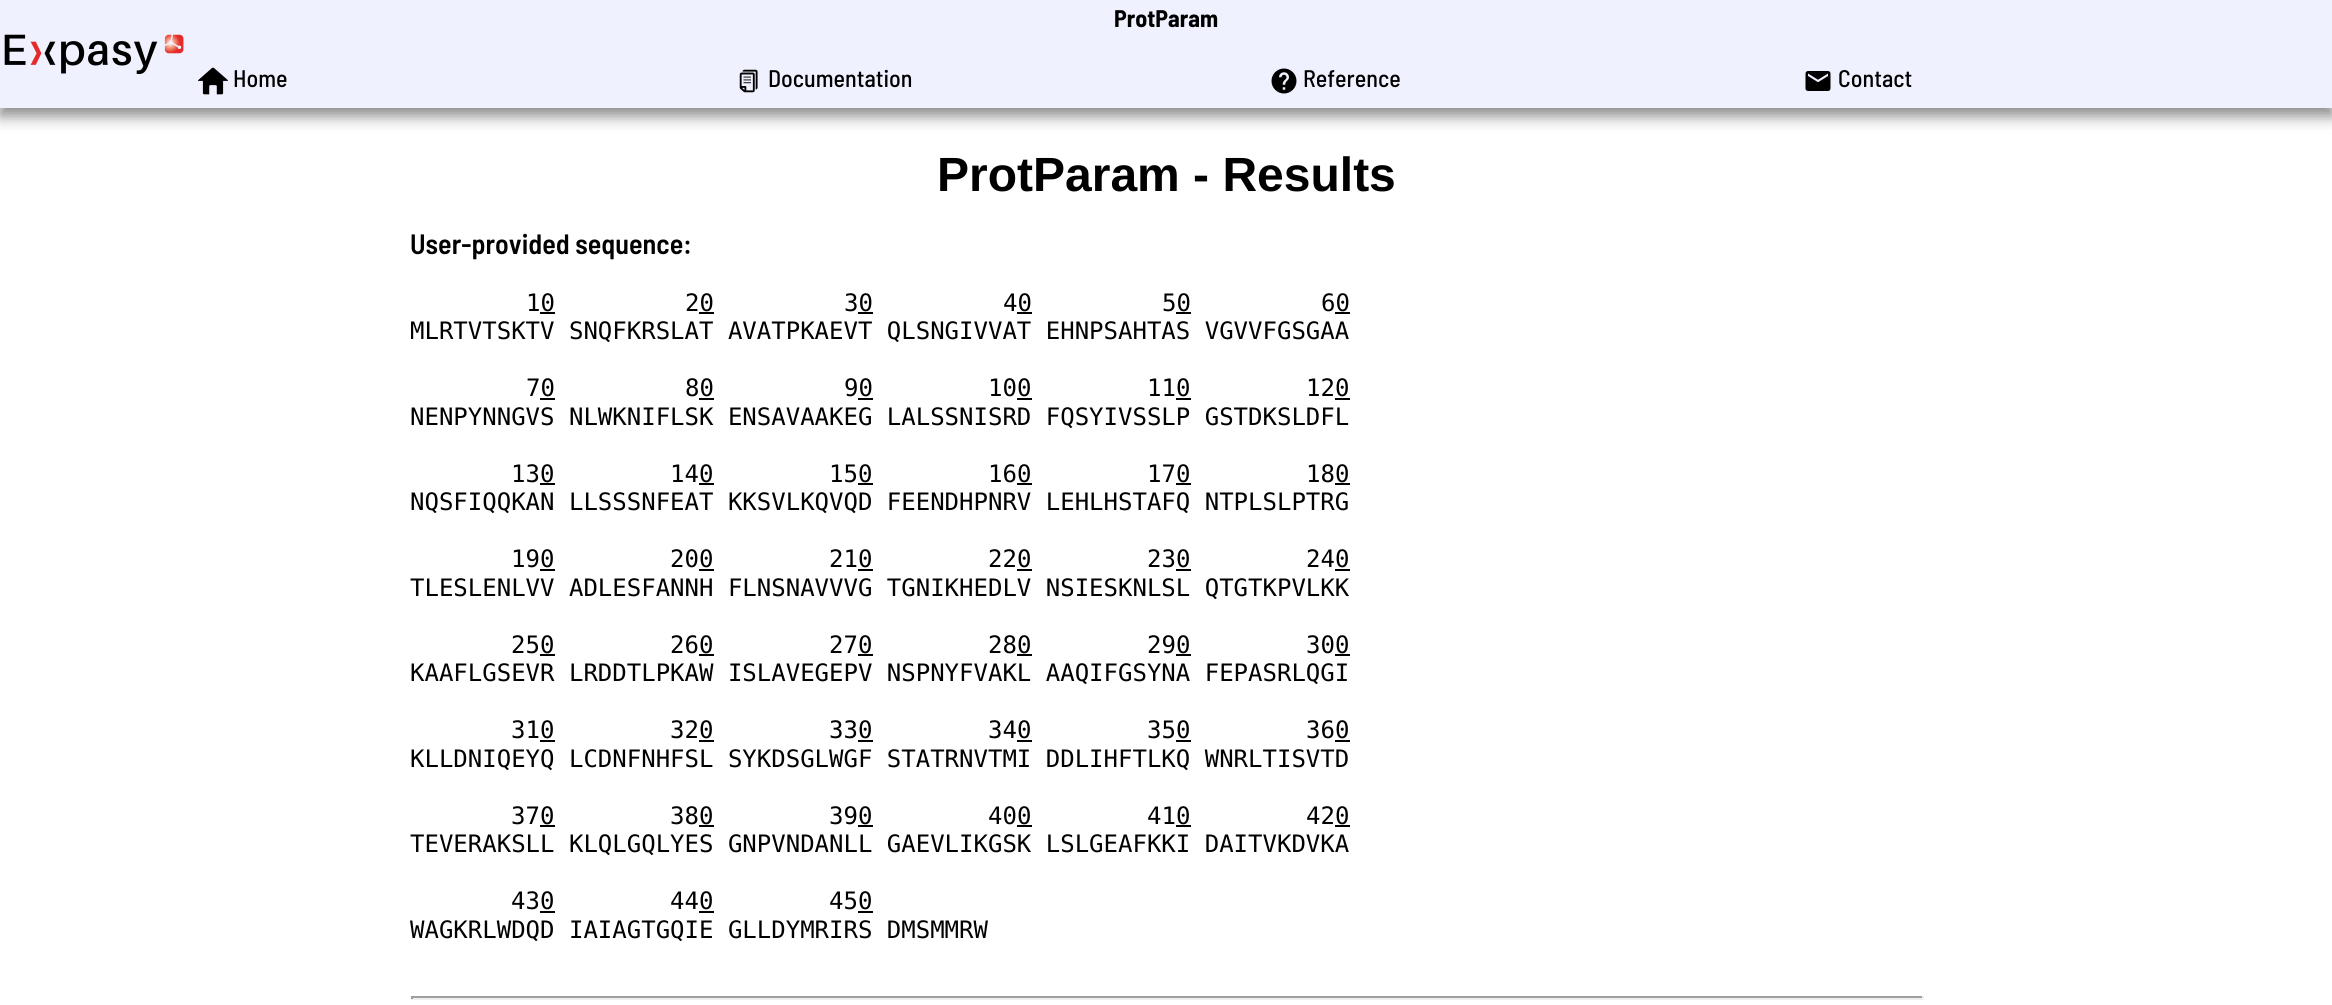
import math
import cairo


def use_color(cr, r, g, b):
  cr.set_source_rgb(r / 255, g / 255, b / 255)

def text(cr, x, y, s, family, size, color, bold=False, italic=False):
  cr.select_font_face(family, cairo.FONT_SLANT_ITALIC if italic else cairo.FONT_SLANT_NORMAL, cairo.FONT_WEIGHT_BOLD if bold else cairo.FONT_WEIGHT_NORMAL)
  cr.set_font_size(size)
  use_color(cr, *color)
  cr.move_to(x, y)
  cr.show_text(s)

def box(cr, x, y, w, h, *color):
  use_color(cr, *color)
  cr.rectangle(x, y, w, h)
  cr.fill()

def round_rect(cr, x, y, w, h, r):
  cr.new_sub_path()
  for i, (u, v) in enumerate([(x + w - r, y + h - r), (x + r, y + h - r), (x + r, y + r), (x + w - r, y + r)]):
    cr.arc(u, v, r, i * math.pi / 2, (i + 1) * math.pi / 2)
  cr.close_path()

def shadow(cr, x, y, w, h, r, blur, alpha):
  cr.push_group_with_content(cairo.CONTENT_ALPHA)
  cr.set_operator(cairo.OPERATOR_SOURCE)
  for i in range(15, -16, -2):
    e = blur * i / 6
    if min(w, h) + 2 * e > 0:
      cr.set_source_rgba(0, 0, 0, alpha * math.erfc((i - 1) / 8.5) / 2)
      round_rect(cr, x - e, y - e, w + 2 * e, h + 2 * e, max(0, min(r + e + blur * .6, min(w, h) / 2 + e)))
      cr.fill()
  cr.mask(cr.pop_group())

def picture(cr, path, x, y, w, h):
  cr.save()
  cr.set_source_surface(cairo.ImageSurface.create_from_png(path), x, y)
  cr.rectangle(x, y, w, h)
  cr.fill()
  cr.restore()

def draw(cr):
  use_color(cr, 255, 255, 255)
  cr.paint()
  use_color(cr, 136, 136, 136)
  shadow(cr, 0, 8, 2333, 108, 0, 7.5, 1)
  box(cr, 0, 0, 2332, 108, 240, 241, 255)
  picture(cr, "img_01.png", 4, 34, 180, 40)
  picture(cr, "img_02.png", 198, 67, 30, 28)
  picture(cr, "img_03.png", 739, 69, 19, 24)
  picture(cr, "img_04.png", 1271, 68, 26, 26)
  picture(cr, "img_05.png", 1805, 71, 26, 20)
  box(cr, 540, 312, 15, 2, 0, 0, 0)
  box(cr, 699, 312, 15, 2, 0, 0, 0)
  box(cr, 858, 312, 15, 2, 0, 0, 0)
  box(cr, 1017, 312, 15, 2, 0, 0, 0)
  box(cr, 1176, 312, 15, 2, 0, 0, 0)
  box(cr, 1335, 312, 15, 2, 0, 0, 0)
  box(cr, 540, 398, 15, 2, 0, 0, 0)
  box(cr, 699, 398, 15, 2, 0, 0, 0)
  box(cr, 858, 398, 15, 2, 0, 0, 0)
  box(cr, 1017, 398, 15, 2, 0, 0, 0)
  box(cr, 1176, 398, 15, 2, 0, 0, 0)
  box(cr, 1335, 398, 15, 2, 0, 0, 0)
  box(cr, 540, 483, 15, 2, 0, 0, 0)
  box(cr, 699, 483, 15, 2, 0, 0, 0)
  box(cr, 858, 483, 15, 2, 0, 0, 0)
  box(cr, 1017, 483, 15, 2, 0, 0, 0)
  box(cr, 1176, 483, 15, 2, 0, 0, 0)
  box(cr, 1335, 483, 15, 2, 0, 0, 0)
  box(cr, 540, 569, 15, 2, 0, 0, 0)
  box(cr, 699, 569, 15, 2, 0, 0, 0)
  box(cr, 858, 569, 15, 2, 0, 0, 0)
  box(cr, 1017, 569, 15, 2, 0, 0, 0)
  box(cr, 1176, 569, 15, 2, 0, 0, 0)
  box(cr, 1335, 569, 15, 2, 0, 0, 0)
  box(cr, 540, 654, 15, 2, 0, 0, 0)
  box(cr, 699, 654, 15, 2, 0, 0, 0)
  box(cr, 858, 654, 15, 2, 0, 0, 0)
  box(cr, 1017, 654, 15, 2, 0, 0, 0)
  box(cr, 1176, 654, 15, 2, 0, 0, 0)
  box(cr, 1335, 654, 15, 2, 0, 0, 0)
  box(cr, 540, 740, 15, 2, 0, 0, 0)
  box(cr, 699, 740, 15, 2, 0, 0, 0)
  box(cr, 858, 740, 15, 2, 0, 0, 0)
  box(cr, 1017, 740, 15, 2, 0, 0, 0)
  box(cr, 1176, 740, 15, 2, 0, 0, 0)
  box(cr, 1335, 740, 15, 2, 0, 0, 0)
  box(cr, 540, 825, 15, 2, 0, 0, 0)
  box(cr, 699, 825, 15, 2, 0, 0, 0)
  box(cr, 858, 825, 15, 2, 0, 0, 0)
  box(cr, 1017, 825, 15, 2, 0, 0, 0)
  box(cr, 1176, 825, 15, 2, 0, 0, 0)
  box(cr, 1335, 825, 15, 2, 0, 0, 0)
  box(cr, 540, 911, 15, 2, 0, 0, 0)
  box(cr, 699, 911, 15, 2, 0, 0, 0)
  box(cr, 858, 911, 15, 2, 0, 0, 0)
  box(cr, 411, 996, 1512, 2, 159, 159, 159)
  box(cr, 1922, 996, 2, 3, 238, 238, 238)
  box(cr, 411, 998, 1512, 2, 238, 238, 238)
  box(cr, 411, 996, 2, 3, 159, 159, 159)
  text(cr, 1114, 27, "ProtParam", "Barlow Semi Condensed", 24, (0, 0, 0), bold=True)
  text(cr, 233, 87, "Home", "Barlow Semi Condensed Medium", 24, (0, 0, 0))
  text(cr, 768, 87, "Documentation", "Barlow Semi Condensed Medium", 24, (0, 0, 0))
  text(cr, 1303, 87, "Reference", "Barlow Semi Condensed Medium", 24, (0, 0, 0))
  text(cr, 1838, 87, "Contact", "Barlow Semi Condensed Medium", 24, (0, 0, 0))
  text(cr, 937, 191, "ProtParam - Results", "Liberation Sans", 48, (0, 0, 0), bold=True)
  text(cr, 410, 254, "User-provided sequence:", "Barlow Semi Condensed SemiBold", 28, (0, 0, 0))
  text(cr, 526, 311, "10", "DejaVu Sans Mono", 24, (0, 0, 0))
  text(cr, 685, 311, "20", "DejaVu Sans Mono", 24, (0, 0, 0))
  text(cr, 844, 311, "30", "DejaVu Sans Mono", 24, (0, 0, 0))
  text(cr, 1003, 311, "40", "DejaVu Sans Mono", 24, (0, 0, 0))
  text(cr, 1162, 311, "50", "DejaVu Sans Mono", 24, (0, 0, 0))
  text(cr, 1321, 311, "60", "DejaVu Sans Mono", 24, (0, 0, 0))
  text(cr, 410, 339, "MLRTVTSKTV SNQFKRSLAT AVATPKAEVT QLSNGIVVAT EHNPSAHTAS VGVVFGSGAA", "DejaVu Sans Mono", 24, (0, 0, 0))
  text(cr, 526, 396, "70", "DejaVu Sans Mono", 24, (0, 0, 0))
  text(cr, 685, 396, "80", "DejaVu Sans Mono", 24, (0, 0, 0))
  text(cr, 844, 396, "90", "DejaVu Sans Mono", 24, (0, 0, 0))
  text(cr, 988, 396, "100", "DejaVu Sans Mono", 24, (0, 0, 0))
  text(cr, 1147, 396, "110", "DejaVu Sans Mono", 24, (0, 0, 0))
  text(cr, 1306, 396, "120", "DejaVu Sans Mono", 24, (0, 0, 0))
  text(cr, 410, 425, "NENPYNNGVS NLWKNIFLSK ENSAVAAKEG LALSSNISRD FQSYIVSSLP GSTDKSLDFL", "DejaVu Sans Mono", 24, (0, 0, 0))
  text(cr, 511, 482, "130", "DejaVu Sans Mono", 24, (0, 0, 0))
  text(cr, 670, 482, "140", "DejaVu Sans Mono", 24, (0, 0, 0))
  text(cr, 829, 482, "150", "DejaVu Sans Mono", 24, (0, 0, 0))
  text(cr, 988, 482, "160", "DejaVu Sans Mono", 24, (0, 0, 0))
  text(cr, 1147, 482, "170", "DejaVu Sans Mono", 24, (0, 0, 0))
  text(cr, 1306, 482, "180", "DejaVu Sans Mono", 24, (0, 0, 0))
  text(cr, 410, 510, "NQSFIQQKAN LLSSSNFEAT KKSVLKQVQD FEENDHPNRV LEHLHSTAFQ NTPLSLPTRG", "DejaVu Sans Mono", 24, (0, 0, 0))
  text(cr, 511, 567, "190", "DejaVu Sans Mono", 24, (0, 0, 0))
  text(cr, 670, 567, "200", "DejaVu Sans Mono", 24, (0, 0, 0))
  text(cr, 829, 567, "210", "DejaVu Sans Mono", 24, (0, 0, 0))
  text(cr, 988, 567, "220", "DejaVu Sans Mono", 24, (0, 0, 0))
  text(cr, 1147, 567, "230", "DejaVu Sans Mono", 24, (0, 0, 0))
  text(cr, 1306, 567, "240", "DejaVu Sans Mono", 24, (0, 0, 0))
  text(cr, 410, 596, "TLESLENLVV ADLESFANNH FLNSNAVVVG TGNIKHEDLV NSIESKNLSL QTGTKPVLKK", "DejaVu Sans Mono", 24, (0, 0, 0))
  text(cr, 511, 653, "250", "DejaVu Sans Mono", 24, (0, 0, 0))
  text(cr, 670, 653, "260", "DejaVu Sans Mono", 24, (0, 0, 0))
  text(cr, 829, 653, "270", "DejaVu Sans Mono", 24, (0, 0, 0))
  text(cr, 988, 653, "280", "DejaVu Sans Mono", 24, (0, 0, 0))
  text(cr, 1147, 653, "290", "DejaVu Sans Mono", 24, (0, 0, 0))
  text(cr, 1306, 653, "300", "DejaVu Sans Mono", 24, (0, 0, 0))
  text(cr, 410, 681, "KAAFLGSEVR LRDDTLPKAW ISLAVEGEPV NSPNYFVAKL AAQIFGSYNA FEPASRLQGI", "DejaVu Sans Mono", 24, (0, 0, 0))
  text(cr, 511, 738, "310", "DejaVu Sans Mono", 24, (0, 0, 0))
  text(cr, 670, 738, "320", "DejaVu Sans Mono", 24, (0, 0, 0))
  text(cr, 829, 738, "330", "DejaVu Sans Mono", 24, (0, 0, 0))
  text(cr, 988, 738, "340", "DejaVu Sans Mono", 24, (0, 0, 0))
  text(cr, 1147, 738, "350", "DejaVu Sans Mono", 24, (0, 0, 0))
  text(cr, 1306, 738, "360", "DejaVu Sans Mono", 24, (0, 0, 0))
  text(cr, 410, 767, "KLLDNIQEYQ LCDNFNHFSL SYKDSGLWGF STATRNVTMI DDLIHFTLKQ WNRLTISVTD", "DejaVu Sans Mono", 24, (0, 0, 0))
  text(cr, 511, 824, "370", "DejaVu Sans Mono", 24, (0, 0, 0))
  text(cr, 670, 824, "380", "DejaVu Sans Mono", 24, (0, 0, 0))
  text(cr, 829, 824, "390", "DejaVu Sans Mono", 24, (0, 0, 0))
  text(cr, 988, 824, "400", "DejaVu Sans Mono", 24, (0, 0, 0))
  text(cr, 1147, 824, "410", "DejaVu Sans Mono", 24, (0, 0, 0))
  text(cr, 1306, 824, "420", "DejaVu Sans Mono", 24, (0, 0, 0))
  text(cr, 410, 852, "TEVERAKSLL KLQLGQLYES GNPVNDANLL GAEVLIKGSK LSLGEAFKKI DAITVKDVKA", "DejaVu Sans Mono", 24, (0, 0, 0))
  text(cr, 511, 909, "430", "DejaVu Sans Mono", 24, (0, 0, 0))
  text(cr, 670, 909, "440", "DejaVu Sans Mono", 24, (0, 0, 0))
  text(cr, 829, 909, "450", "DejaVu Sans Mono", 24, (0, 0, 0))
  text(cr, 410, 938, "WAGKRLWDQD IAIAGTGQIE GLLDYMRIRS DMSMMRW", "DejaVu Sans Mono", 24, (0, 0, 0))


surface = cairo.ImageSurface(cairo.FORMAT_RGB24, 2332, 1005)
cr = cairo.Context(surface)
options = cairo.FontOptions()
options.set_hint_metrics(cairo.HINT_METRICS_OFF)
options.set_hint_style(cairo.HINT_STYLE_NONE)
cr.set_font_options(options)
cr.set_miter_limit(4)
draw(cr)
surface.write_to_png("out.png")
